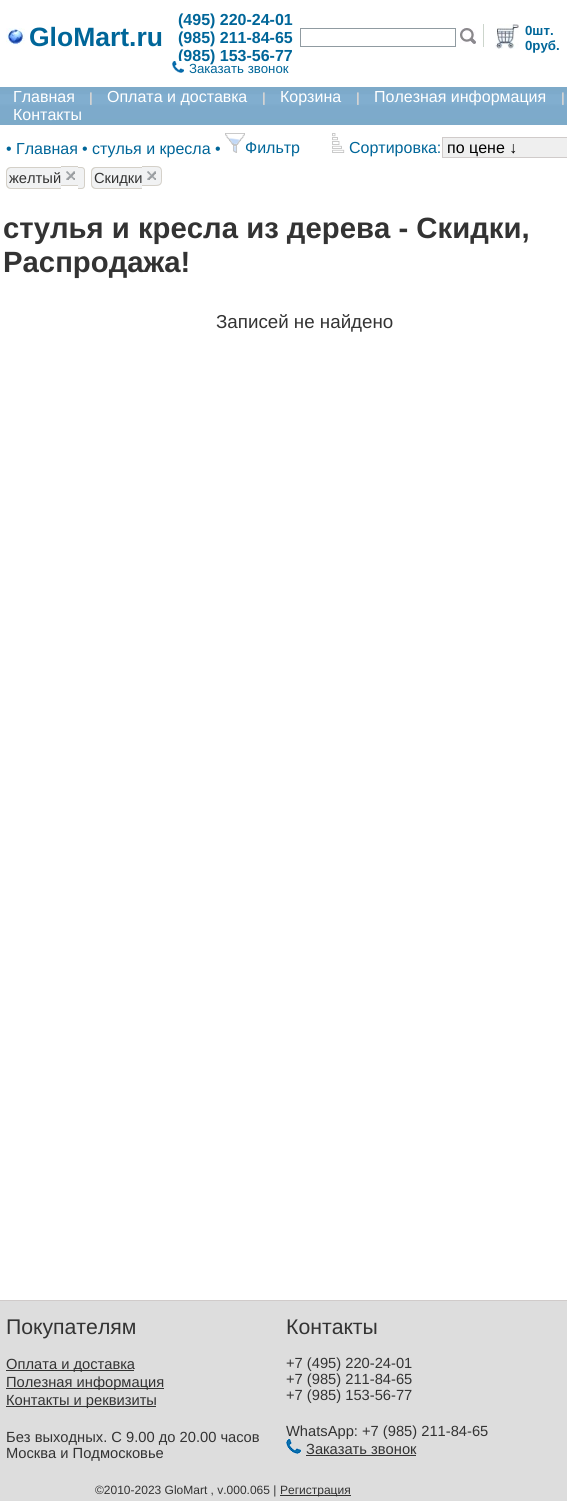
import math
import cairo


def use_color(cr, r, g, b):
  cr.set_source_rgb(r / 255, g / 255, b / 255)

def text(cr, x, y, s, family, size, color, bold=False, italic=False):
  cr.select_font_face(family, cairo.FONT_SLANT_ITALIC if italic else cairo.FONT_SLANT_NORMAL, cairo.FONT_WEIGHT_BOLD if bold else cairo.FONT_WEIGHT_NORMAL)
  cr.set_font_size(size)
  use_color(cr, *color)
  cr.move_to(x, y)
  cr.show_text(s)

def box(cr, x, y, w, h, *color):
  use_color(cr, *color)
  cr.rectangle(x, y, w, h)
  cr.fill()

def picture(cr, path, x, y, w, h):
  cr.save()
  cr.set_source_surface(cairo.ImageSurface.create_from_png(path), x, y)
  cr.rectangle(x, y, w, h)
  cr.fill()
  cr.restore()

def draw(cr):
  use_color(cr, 255, 255, 255)
  cr.paint()
  picture(cr, "img_01.png", 6, 28, 19, 17)
  cr.rectangle(300.5, 28.5, 155, 18)
  use_color(cr, 144, 155, 161)
  cr.set_line_width(1)
  cr.stroke()
  picture(cr, "img_02.png", 460, 28, 16, 16)
  box(cr, 483, 24, 1, 23, 204, 213, 204)
  picture(cr, "img_03.png", 495, 24, 24, 25)
  picture(cr, "img_05.png", 0, 87, 2, 38)
  picture(cr, "img_06.png", 2, 87, 565, 38)
  picture(cr, "img_07.png", 225, 133, 20, 20)
  picture(cr, "img_08.png", 332, 133, 13, 20)
  use_color(cr, 239, 239, 239)
  cr.rectangle(442.5, 137.5, 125, 20)
  cr.fill_preserve()
  use_color(cr, 208, 203, 202)
  cr.stroke()
  use_color(cr, 241, 242, 243)
  cr.new_path()
  cr.move_to(11, 167)
  cr.line_to(61, 167)
  cr.line_to(61, 189)
  cr.line_to(11, 189)
  cr.curve_to(8, 189, 6, 187, 6, 184)
  cr.line_to(6, 172)
  cr.curve_to(6, 169, 8, 167, 11, 167)
  cr.close_path()
  cr.fill()
  use_color(cr, 212, 208, 200)
  cr.set_fill_rule(cairo.FILL_RULE_EVEN_ODD)
  cr.new_path()
  cr.move_to(11, 167)
  cr.line_to(61, 167)
  cr.line_to(61, 189)
  cr.line_to(11, 189)
  cr.curve_to(8, 189, 6, 187, 6, 184)
  cr.line_to(6, 172)
  cr.curve_to(6, 169, 8, 167, 11, 167)
  cr.close_path()
  cr.move_to(11, 168)
  cr.line_to(61, 168)
  cr.line_to(61, 188)
  cr.line_to(11, 188)
  cr.curve_to(9, 188, 7, 186, 7, 184)
  cr.line_to(7, 172)
  cr.curve_to(7, 170, 9, 168, 11, 168)
  cr.close_path()
  cr.fill()
  box(cr, 61, 167, 17, 18, 241, 242, 243)
  box(cr, 61, 166, 17, 1, 212, 208, 200)
  box(cr, 61, 185, 17, 1, 212, 208, 200)
  use_color(cr, 241, 242, 243)
  cr.new_path()
  cr.move_to(78, 167)
  cr.line_to(81.5, 167)
  cr.curve_to(83.5, 167, 85, 168.5, 85, 170.5)
  cr.line_to(85, 185.5)
  cr.curve_to(85, 187.5, 83.5, 189, 81.5, 189)
  cr.line_to(78, 189)
  cr.close_path()
  cr.fill()
  use_color(cr, 212, 208, 200)
  cr.new_path()
  cr.move_to(78, 167)
  cr.line_to(81.5, 167)
  cr.curve_to(83.5, 167, 85, 168.5, 85, 170.5)
  cr.line_to(85, 185.5)
  cr.curve_to(85, 187.5, 83.5, 189, 81.5, 189)
  cr.line_to(78, 189)
  cr.close_path()
  cr.move_to(78, 168)
  cr.line_to(81.5, 168)
  cr.curve_to(83, 168, 84, 169, 84, 170.5)
  cr.line_to(84, 185.5)
  cr.curve_to(84, 187, 83, 188, 81.5, 188)
  cr.line_to(78, 188)
  cr.close_path()
  cr.fill()
  picture(cr, "img_09.png", 66, 171, 9, 9)
  use_color(cr, 241, 242, 243)
  cr.new_path()
  cr.move_to(96, 167)
  cr.line_to(142, 167)
  cr.line_to(142, 189)
  cr.line_to(96, 189)
  cr.curve_to(93, 189, 91, 187, 91, 184)
  cr.line_to(91, 172)
  cr.curve_to(91, 169, 93, 167, 96, 167)
  cr.close_path()
  cr.fill()
  use_color(cr, 212, 208, 200)
  cr.new_path()
  cr.move_to(96, 167)
  cr.line_to(142, 167)
  cr.line_to(142, 189)
  cr.line_to(96, 189)
  cr.curve_to(93, 189, 91, 187, 91, 184)
  cr.line_to(91, 172)
  cr.curve_to(91, 169, 93, 167, 96, 167)
  cr.close_path()
  cr.move_to(96, 168)
  cr.line_to(142, 168)
  cr.line_to(142, 188)
  cr.line_to(96, 188)
  cr.curve_to(94, 188, 92, 186, 92, 184)
  cr.line_to(92, 172)
  cr.curve_to(92, 170, 94, 168, 96, 168)
  cr.close_path()
  cr.fill()
  use_color(cr, 241, 242, 243)
  cr.new_path()
  cr.move_to(142, 166)
  cr.line_to(157, 166)
  cr.curve_to(160, 166, 162, 168, 162, 171)
  cr.line_to(162, 181)
  cr.curve_to(162, 184, 160, 186, 157, 186)
  cr.line_to(142, 186)
  cr.close_path()
  cr.fill()
  use_color(cr, 212, 208, 200)
  cr.new_path()
  cr.move_to(142, 166)
  cr.line_to(154.5, 166)
  cr.curve_to(162.5, 166, 162, 169, 162, 176)
  cr.curve_to(162, 183, 162.5, 186, 154.5, 186)
  cr.line_to(142, 186)
  cr.close_path()
  cr.move_to(142, 167)
  cr.line_to(154.5, 167)
  cr.curve_to(162, 167, 161, 169.5, 161, 176)
  cr.curve_to(161, 182.5, 162, 185, 154.5, 185)
  cr.line_to(142, 185)
  cr.close_path()
  cr.fill()
  picture(cr, "img_10.png", 147, 171, 9, 9)
  box(cr, 0, 1300, 567, 1, 208, 203, 202)
  box(cr, 0, 1301, 567, 200, 221, 221, 221)
  box(cr, 6, 1370, 128, 1, 51, 51, 51)
  box(cr, 6, 1388, 158, 1, 51, 51, 51)
  box(cr, 6, 1406, 150, 1, 51, 51, 51)
  box(cr, 306, 1455, 110, 1, 51, 51, 51)
  box(cr, 280, 1495, 71, 1, 51, 51, 51)
  text(cr, 29, 46, "GloMart.ru", "Liberation Sans", 26.5, (0, 102, 153), bold=True)
  text(cr, 178, 25, "(495) 220-24-01", "Liberation Sans", 16, (0, 102, 153), bold=True)
  text(cr, 178, 43, "(985) 211-84-65", "Liberation Sans", 16, (0, 102, 153), bold=True)
  text(cr, 178, 61, "(985) 153-56-77", "Liberation Sans", 16, (0, 102, 153), bold=True)
  text(cr, 525, 35, "0шт.", "Liberation Sans", 13.25, (0, 102, 153), bold=True)
  text(cr, 525, 50, "0руб.", "Liberation Sans", 13.25, (0, 102, 153), bold=True)
  picture(cr, "img_04.png", 172, 61, 12, 12)
  text(cr, 189, 73, "Заказать звонок", "Liberation Sans", 13.25, (0, 102, 153))
  text(cr, 13, 102, "Главная", "Liberation Sans", 16, (255, 255, 255))
  text(cr, 89, 102, "|", "Liberation Sans", 13.25, (211, 211, 211), bold=True)
  text(cr, 107, 102, "Оплата и доставка", "Liberation Sans", 16, (255, 255, 255))
  text(cr, 262, 102, "|", "Liberation Sans", 13.25, (211, 211, 211), bold=True)
  text(cr, 280, 102, "Корзина", "Liberation Sans", 16, (255, 255, 255))
  text(cr, 356, 102, "|", "Liberation Sans", 13.25, (211, 211, 211), bold=True)
  text(cr, 374, 102, "Полезная информация", "Liberation Sans", 16, (255, 255, 255))
  text(cr, 561, 102, "|", "Liberation Sans", 13.25, (211, 211, 211), bold=True)
  text(cr, 13, 120, "Контакты", "Liberation Sans", 16, (255, 255, 255))
  text(cr, 6, 154, "• Главная", "Liberation Sans", 16, (0, 102, 153))
  text(cr, 82, 154, "• стулья и кресла", "Liberation Sans", 16, (0, 102, 153))
  text(cr, 215, 154, "•", "Liberation Sans", 16, (0, 102, 153))
  text(cr, 245, 153, "Фильтр", "Liberation Sans", 16, (0, 102, 153))
  text(cr, 349, 153, "Сортировка:", "Liberation Sans", 16, (0, 102, 153))
  text(cr, 447, 153, "по цене ↓", "Liberation Sans", 16, (0, 0, 0))
  text(cr, 9, 183, "желтый", "Liberation Sans", 14.7, (51, 51, 51))
  text(cr, 94, 183, "Скидки", "Liberation Sans", 14.7, (51, 51, 51))
  text(cr, 3, 238, "стулья и кресла из дерева - Скидки,", "Liberation Sans", 29.3, (51, 51, 51), bold=True)
  text(cr, 3, 272, "Распродажа!", "Liberation Sans", 29.3, (51, 51, 51), bold=True)
  text(cr, 216, 328, "Записей не найдено", "Liberation Sans", 18.75, (51, 51, 51))
  text(cr, 6, 1334, "Покупателям", "Liberation Sans", 21.25, (51, 51, 51))
  text(cr, 6, 1369, "Оплата и доставка", "Liberation Sans", 14.7, (51, 51, 51))
  text(cr, 6, 1387, "Полезная информация", "Liberation Sans", 14.7, (51, 51, 51))
  text(cr, 6, 1405, "Контакты и реквизиты", "Liberation Sans", 14.7, (51, 51, 51))
  text(cr, 6, 1442, "Без выходных. С 9.00 до 20.00 часов", "Liberation Sans", 14.7, (51, 51, 51))
  text(cr, 6, 1458, "Москва и Подмосковье", "Liberation Sans", 14.7, (51, 51, 51))
  text(cr, 286, 1334, "Контакты", "Liberation Sans", 21.25, (51, 51, 51))
  text(cr, 286, 1368, "+7 (495) 220-24-01", "Liberation Sans", 14.7, (51, 51, 51))
  text(cr, 286, 1384, "+7 (985) 211-84-65", "Liberation Sans", 14.7, (51, 51, 51))
  text(cr, 286, 1400, "+7 (985) 153-56-77", "Liberation Sans", 14.7, (51, 51, 51))
  text(cr, 286, 1436, "WhatsApp: +7 (985) 211-84-65", "Liberation Sans", 14.7, (51, 51, 51))
  picture(cr, "img_11.png", 286, 1439, 15, 15)
  text(cr, 306, 1454, "Заказать звонок", "Liberation Sans", 14.7, (51, 51, 51))
  text(cr, 95, 1494, "©2010-2023 GloMart , v.000.065 |", "Liberation Sans", 12, (51, 51, 51))
  text(cr, 280, 1494, "Регистрация", "Liberation Sans", 12, (51, 51, 51))


surface = cairo.ImageSurface(cairo.FORMAT_RGB24, 567, 1501)
cr = cairo.Context(surface)
options = cairo.FontOptions()
options.set_hint_metrics(cairo.HINT_METRICS_OFF)
options.set_hint_style(cairo.HINT_STYLE_NONE)
cr.set_font_options(options)
cr.set_miter_limit(4)
draw(cr)
surface.write_to_png("out.png")
